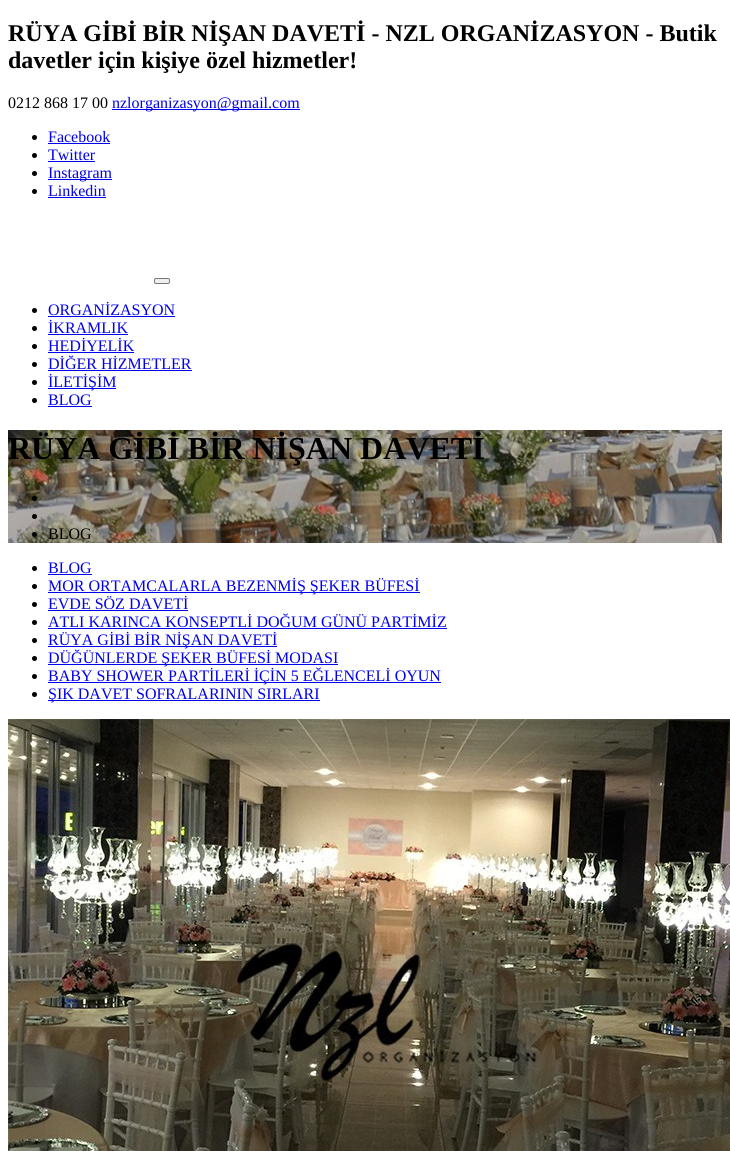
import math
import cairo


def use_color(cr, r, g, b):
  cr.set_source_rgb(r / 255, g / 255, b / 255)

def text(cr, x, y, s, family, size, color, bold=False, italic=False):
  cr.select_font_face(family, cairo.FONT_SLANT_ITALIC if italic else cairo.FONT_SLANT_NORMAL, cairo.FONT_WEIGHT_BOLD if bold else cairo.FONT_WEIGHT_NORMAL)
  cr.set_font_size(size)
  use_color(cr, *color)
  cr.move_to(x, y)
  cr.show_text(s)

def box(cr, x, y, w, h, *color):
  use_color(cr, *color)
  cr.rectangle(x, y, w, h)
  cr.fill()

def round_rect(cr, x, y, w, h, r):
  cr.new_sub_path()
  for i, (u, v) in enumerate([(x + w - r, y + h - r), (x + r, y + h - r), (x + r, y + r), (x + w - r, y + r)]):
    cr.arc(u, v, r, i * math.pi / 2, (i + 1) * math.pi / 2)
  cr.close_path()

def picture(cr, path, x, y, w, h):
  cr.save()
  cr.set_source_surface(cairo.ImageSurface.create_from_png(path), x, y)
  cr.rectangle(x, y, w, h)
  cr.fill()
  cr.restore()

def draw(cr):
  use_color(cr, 255, 255, 255)
  cr.paint()
  box(cr, 112, 109, 188, 1, 0, 0, 238)
  use_color(cr, 0, 0, 0)
  cr.arc(34.5, 137.5, 2.5, 0, 2 * math.pi)
  cr.fill()
  box(cr, 48, 143, 62, 1, 0, 0, 238)
  use_color(cr, 0, 0, 0)
  cr.arc(34.5, 155.5, 2.5, 0, 2 * math.pi)
  cr.fill()
  box(cr, 48, 161, 47, 1, 0, 0, 238)
  use_color(cr, 0, 0, 0)
  cr.arc(34.5, 173.5, 2.5, 0, 2 * math.pi)
  cr.fill()
  box(cr, 48, 179, 64, 1, 0, 0, 238)
  use_color(cr, 0, 0, 0)
  cr.arc(34.5, 191.5, 2.5, 0, 2 * math.pi)
  cr.fill()
  box(cr, 48, 197, 58, 1, 0, 0, 238)
  use_color(cr, 239, 239, 239)
  round_rect(cr, 154.5, 278.5, 15, 5, 1.5)
  cr.fill_preserve()
  use_color(cr, 118, 118, 118)
  cr.set_line_width(1)
  cr.stroke()
  use_color(cr, 0, 0, 0)
  cr.arc(34.5, 310.5, 2.5, 0, 2 * math.pi)
  cr.fill()
  box(cr, 48, 316, 127, 1, 0, 0, 238)
  use_color(cr, 0, 0, 0)
  cr.arc(34.5, 328.5, 2.5, 0, 2 * math.pi)
  cr.fill()
  box(cr, 48, 334, 80, 1, 0, 0, 238)
  use_color(cr, 0, 0, 0)
  cr.arc(34.5, 346.5, 2.5, 0, 2 * math.pi)
  cr.fill()
  box(cr, 48, 352, 86, 1, 0, 0, 238)
  use_color(cr, 0, 0, 0)
  cr.arc(34.5, 364.5, 2.5, 0, 2 * math.pi)
  cr.fill()
  box(cr, 48, 370, 144, 1, 0, 0, 238)
  use_color(cr, 0, 0, 0)
  cr.arc(34.5, 382.5, 2.5, 0, 2 * math.pi)
  cr.fill()
  box(cr, 48, 388, 68, 1, 0, 0, 238)
  use_color(cr, 0, 0, 0)
  cr.arc(34.5, 400.5, 2.5, 0, 2 * math.pi)
  cr.fill()
  box(cr, 48, 406, 44, 1, 0, 0, 238)
  picture(cr, "img_01.png", 8, 430, 714, 113)
  use_color(cr, 0, 0, 0)
  cr.arc(34.5, 498.5, 2.5, 0, 2 * math.pi)
  cr.fill()
  cr.arc(34.5, 516.5, 2.5, 0, 2 * math.pi)
  cr.fill()
  cr.arc(34.5, 534.5, 2.5, 0, 2 * math.pi)
  cr.fill()
  cr.arc(34.5, 568.5, 2.5, 0, 2 * math.pi)
  cr.fill()
  box(cr, 48, 574, 44, 1, 0, 0, 238)
  use_color(cr, 0, 0, 0)
  cr.arc(34.5, 586.5, 2.5, 0, 2 * math.pi)
  cr.fill()
  box(cr, 48, 592, 372, 1, 0, 0, 238)
  use_color(cr, 0, 0, 0)
  cr.arc(34.5, 604.5, 2.5, 0, 2 * math.pi)
  cr.fill()
  box(cr, 48, 610, 140, 1, 0, 0, 238)
  use_color(cr, 0, 0, 0)
  cr.arc(34.5, 622.5, 2.5, 0, 2 * math.pi)
  cr.fill()
  box(cr, 48, 628, 399, 1, 0, 0, 238)
  use_color(cr, 0, 0, 0)
  cr.arc(34.5, 640.5, 2.5, 0, 2 * math.pi)
  cr.fill()
  box(cr, 48, 646, 229, 1, 0, 0, 238)
  use_color(cr, 0, 0, 0)
  cr.arc(34.5, 658.5, 2.5, 0, 2 * math.pi)
  cr.fill()
  box(cr, 48, 664, 290, 1, 0, 0, 238)
  use_color(cr, 0, 0, 0)
  cr.arc(34.5, 676.5, 2.5, 0, 2 * math.pi)
  cr.fill()
  box(cr, 48, 682, 393, 1, 0, 0, 238)
  use_color(cr, 0, 0, 0)
  cr.arc(34.5, 694.5, 2.5, 0, 2 * math.pi)
  cr.fill()
  box(cr, 48, 700, 272, 1, 0, 0, 238)
  picture(cr, "img_02.png", 8, 719, 722, 432)
  text(cr, 8, 41, "RÜYA GİBİ BİR NİŞAN DAVETİ - NZL ORGANİZASYON - Butik", "Liberation Serif", 24, (0, 0, 0), bold=True)
  text(cr, 8, 68, "davetler için kişiye özel hizmetler!", "Liberation Serif", 24, (0, 0, 0), bold=True)
  text(cr, 8, 108, "0212 868 17 00", "Liberation Serif", 16, (0, 0, 0))
  text(cr, 112, 108, "nzlorganizasyon@gmail.com", "Liberation Serif", 16, (0, 0, 238))
  text(cr, 48, 142, "Facebook", "Liberation Serif", 16, (0, 0, 238))
  text(cr, 48, 160, "Twitter", "Liberation Serif", 16, (0, 0, 238))
  text(cr, 48, 178, "Instagram", "Liberation Serif", 16, (0, 0, 238))
  text(cr, 48, 196, "Linkedin", "Liberation Serif", 16, (0, 0, 238))
  text(cr, 48, 315, "ORGANİZASYON", "Liberation Serif", 16, (0, 0, 238))
  text(cr, 48, 333, "İKRAMLIK", "Liberation Serif", 16, (0, 0, 238))
  text(cr, 48, 351, "HEDİYELİK", "Liberation Serif", 16, (0, 0, 238))
  text(cr, 48, 369, "DİĞER HİZMETLER", "Liberation Serif", 16, (0, 0, 238))
  text(cr, 48, 387, "İLETİŞİM", "Liberation Serif", 16, (0, 0, 238))
  text(cr, 48, 405, "BLOG", "Liberation Serif", 16, (0, 0, 238))
  text(cr, 8, 459, "RÜYA GİBİ BİR NİŞAN DAVETİ", "Liberation Serif", 32, (0, 0, 0), bold=True)
  text(cr, 48, 539, "BLOG", "Liberation Serif", 16, (0, 0, 0))
  text(cr, 48, 573, "BLOG", "Liberation Serif", 16, (0, 0, 238))
  text(cr, 48, 591, "MOR ORTAMCALARLA BEZENMİŞ ŞEKER BÜFESİ", "Liberation Serif", 16, (0, 0, 238))
  text(cr, 48, 609, "EVDE SÖZ DAVETİ", "Liberation Serif", 16, (0, 0, 238))
  text(cr, 48, 627, "ATLI KARINCA KONSEPTLİ DOĞUM GÜNÜ PARTİMİZ", "Liberation Serif", 16, (0, 0, 238))
  text(cr, 48, 645, "RÜYA GİBİ BİR NİŞAN DAVETİ", "Liberation Serif", 16, (0, 0, 238))
  text(cr, 48, 663, "DÜĞÜNLERDE ŞEKER BÜFESİ MODASI", "Liberation Serif", 16, (0, 0, 238))
  text(cr, 48, 681, "BABY SHOWER PARTİLERİ İÇİN 5 EĞLENCELİ OYUN", "Liberation Serif", 16, (0, 0, 238))
  text(cr, 48, 699, "ŞIK DAVET SOFRALARININ SIRLARI", "Liberation Serif", 16, (0, 0, 238))


surface = cairo.ImageSurface(cairo.FORMAT_RGB24, 730, 1151)
cr = cairo.Context(surface)
options = cairo.FontOptions()
options.set_hint_metrics(cairo.HINT_METRICS_OFF)
options.set_hint_style(cairo.HINT_STYLE_NONE)
cr.set_font_options(options)
cr.set_miter_limit(4)
draw(cr)
surface.write_to_png("out.png")
